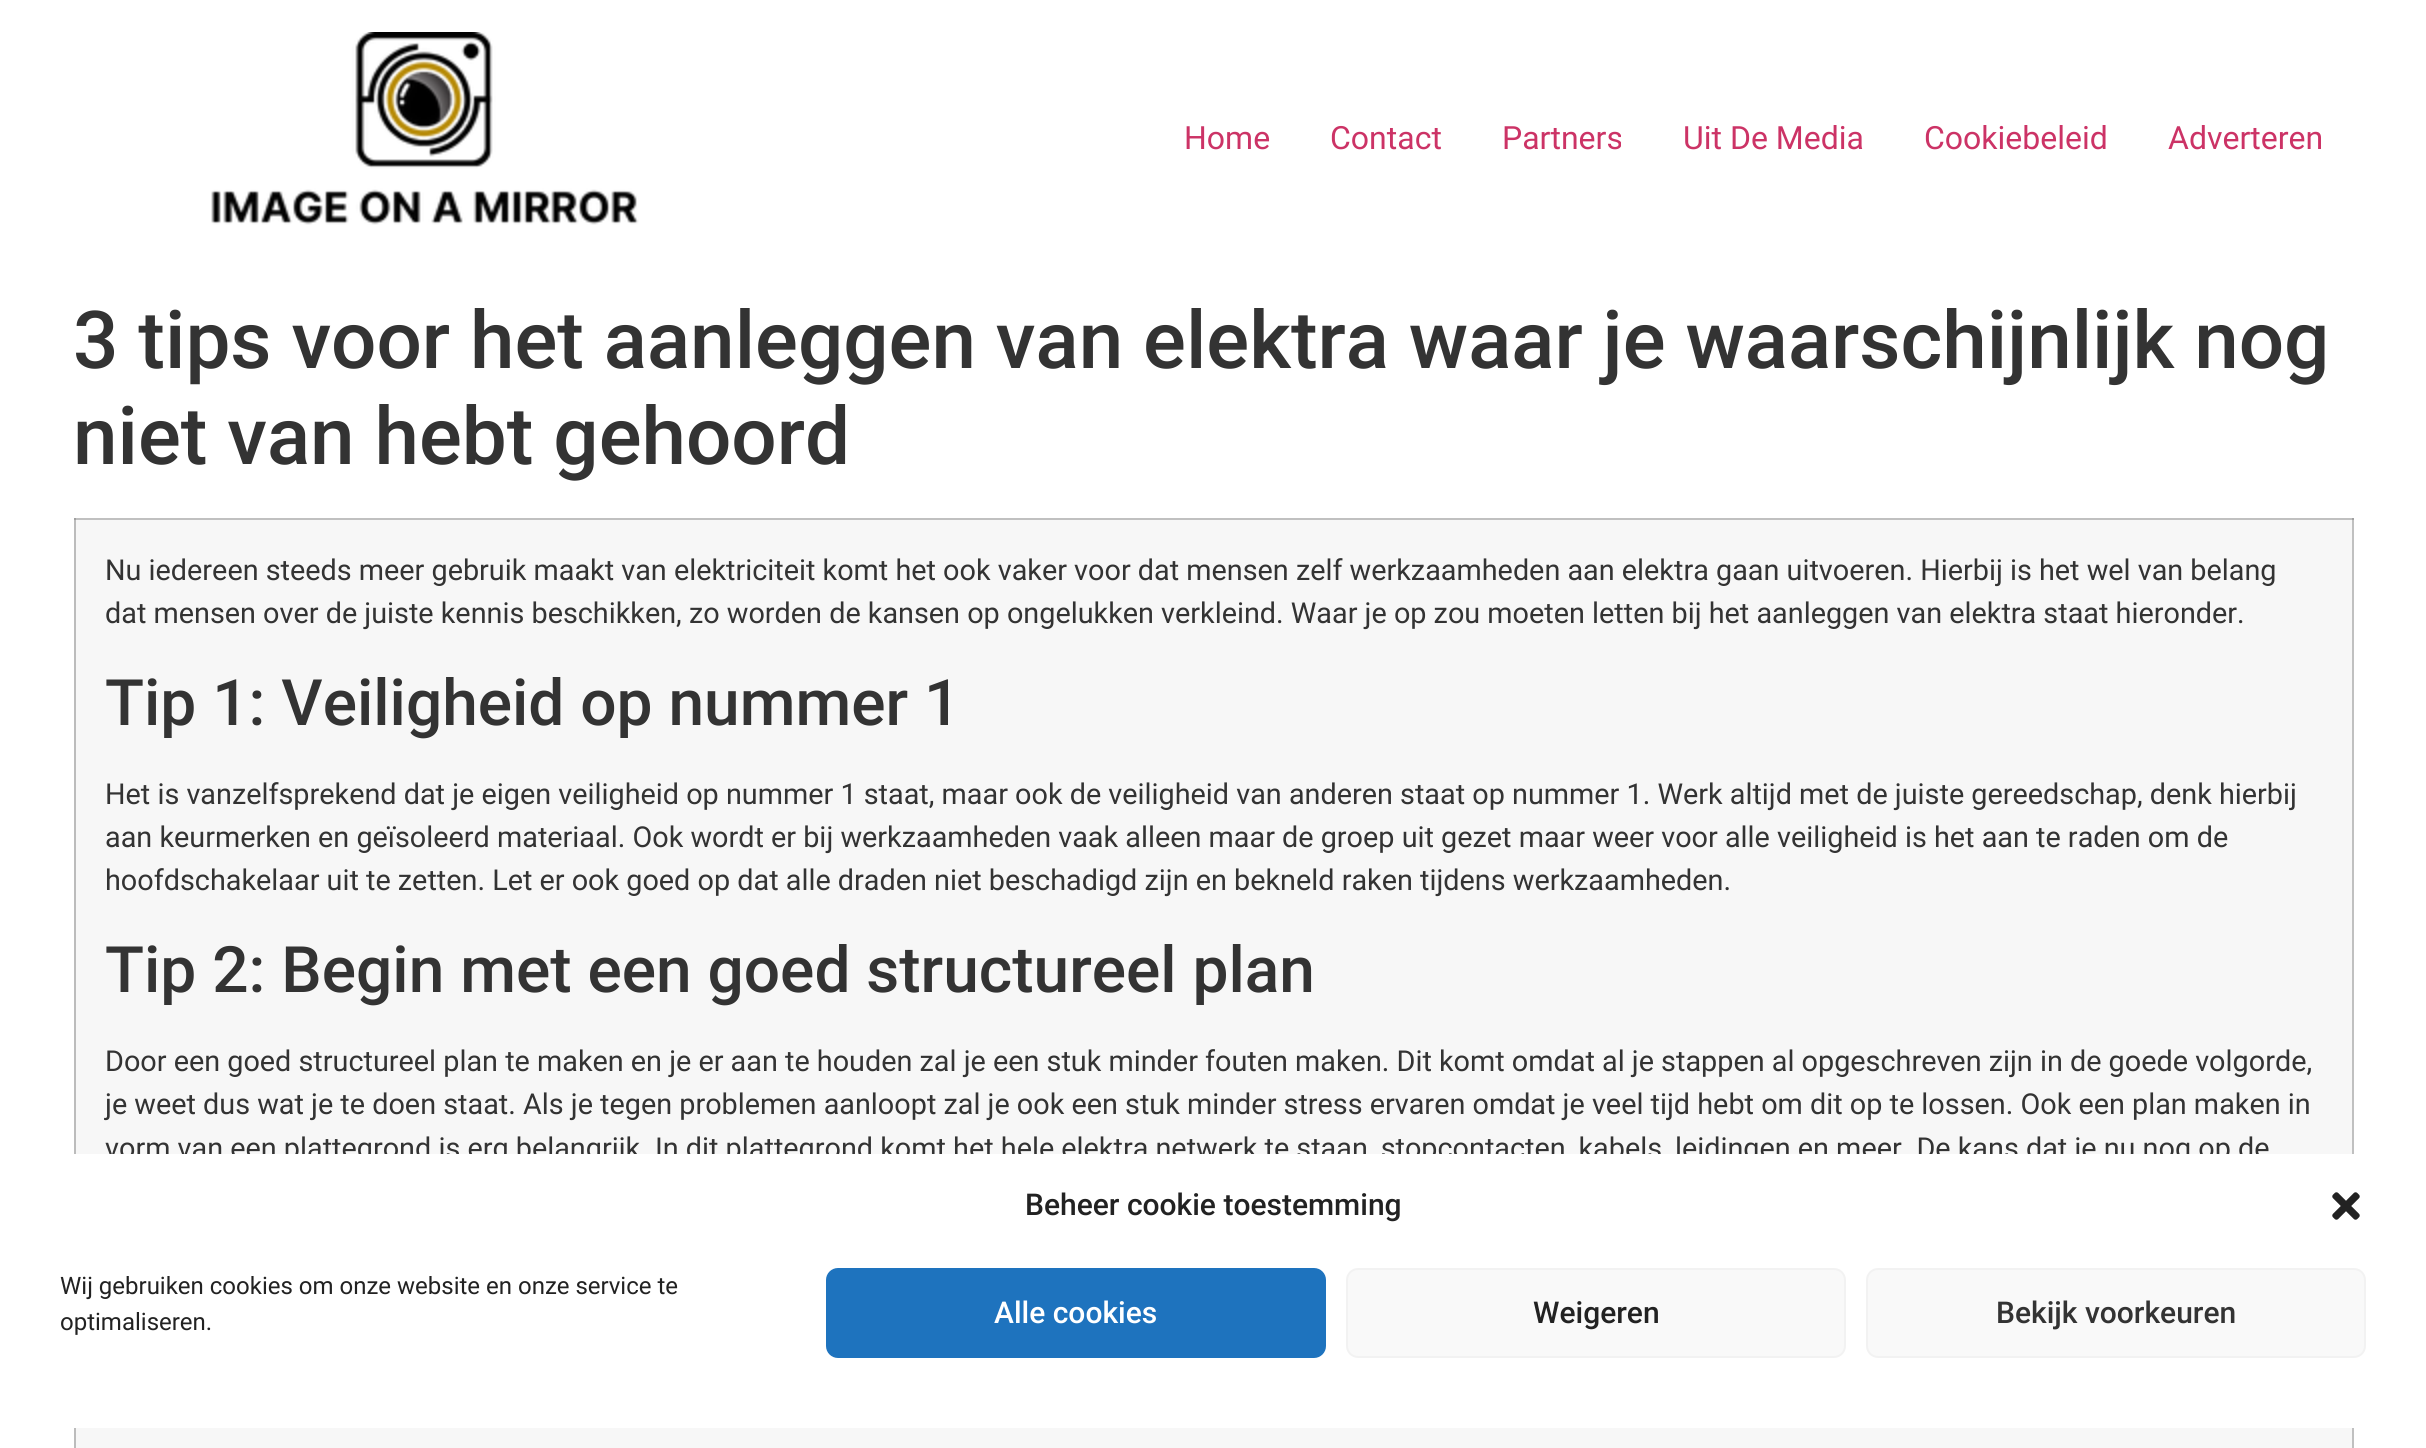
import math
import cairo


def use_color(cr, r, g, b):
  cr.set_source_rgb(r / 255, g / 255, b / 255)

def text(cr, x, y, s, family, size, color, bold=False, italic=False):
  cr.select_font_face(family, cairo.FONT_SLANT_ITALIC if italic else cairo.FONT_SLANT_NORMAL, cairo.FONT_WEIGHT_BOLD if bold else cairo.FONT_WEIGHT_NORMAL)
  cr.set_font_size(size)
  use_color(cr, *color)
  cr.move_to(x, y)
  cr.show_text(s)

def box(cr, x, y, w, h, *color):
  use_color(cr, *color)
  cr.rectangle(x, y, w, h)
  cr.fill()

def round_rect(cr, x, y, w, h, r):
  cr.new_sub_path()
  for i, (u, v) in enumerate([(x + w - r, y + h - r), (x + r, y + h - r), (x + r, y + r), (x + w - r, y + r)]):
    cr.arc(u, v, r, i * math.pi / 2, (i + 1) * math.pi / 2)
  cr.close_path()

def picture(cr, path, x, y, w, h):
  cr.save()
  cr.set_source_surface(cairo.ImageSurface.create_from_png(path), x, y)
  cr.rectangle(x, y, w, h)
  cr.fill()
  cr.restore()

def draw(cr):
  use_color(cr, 255, 255, 255)
  cr.paint()
  box(cr, 2352, 518, 2, 930, 192, 192, 192)
  picture(cr, "img_01.png", 211, 32, 428, 193)
  box(cr, 76, 520, 2276, 928, 247, 247, 247)
  box(cr, 74, 520, 2, 928, 188, 188, 188)
  box(cr, 74, 518, 2280, 2, 192, 192, 192)
  box(cr, 74, 518, 2, 2, 160, 160, 160)
  box(cr, 2352, 518, 2, 2, 160, 160, 160)
  text(cr, 1184, 149, "Home", "Roboto", 32, (204, 51, 102))
  text(cr, 1330, 149, "Contact", "Roboto", 32, (204, 51, 102))
  text(cr, 1502, 149, "Partners", "Roboto", 32, (204, 51, 102))
  text(cr, 1683, 149, "Uit De Media", "Roboto", 32, (204, 51, 102))
  text(cr, 1924, 149, "Cookiebeleid", "Roboto", 32, (204, 51, 102))
  text(cr, 2168, 149, "Adverteren", "Roboto", 32, (204, 51, 102))
  text(cr, 73, 368, "3 tips voor het aanleggen van elektra waar je waarschijnlijk nog", "Roboto Medium", 80, (51, 51, 51))
  text(cr, 73, 464, "niet van hebt gehoord", "Roboto Medium", 80, (51, 51, 51))
  text(cr, 105, 580, "Nu iedereen steeds meer gebruik maakt van elektriciteit komt het ook vaker voor dat mensen zelf werkzaamheden aan elektra gaan uitvoeren. Hierbij is het wel van belang", "Roboto", 28.8, (51, 51, 51))
  text(cr, 105, 623, "dat mensen over de juiste kennis beschikken, zo worden de kansen op ongelukken verkleind. Waar je op zou moeten letten bij het aanleggen van elektra staat hieronder.", "Roboto", 28.8, (51, 51, 51))
  text(cr, 105, 725, "Tip 1: Veiligheid op nummer 1", "Roboto Medium", 64, (51, 51, 51))
  text(cr, 105, 804, "Het is vanzelfsprekend dat je eigen veiligheid op nummer 1 staat, maar ook de veiligheid van anderen staat op nummer 1. Werk altijd met de juiste gereedschap, denk hierbij", "Roboto", 28.8, (51, 51, 51))
  text(cr, 105, 847, "aan keurmerken en geïsoleerd materiaal. Ook wordt er bij werkzaamheden vaak alleen maar de groep uit gezet maar weer voor alle veiligheid is het aan te raden om de", "Roboto", 28.8, (51, 51, 51))
  text(cr, 105, 890, "hoofdschakelaar uit te zetten. Let er ook goed op dat alle draden niet beschadigd zijn en bekneld raken tijdens werkzaamheden.", "Roboto", 28.8, (51, 51, 51))
  text(cr, 105, 992, "Tip 2: Begin met een goed structureel plan", "Roboto Medium", 64, (51, 51, 51))
  text(cr, 105, 1071, "Door een goed structureel plan te maken en je er aan te houden zal je een stuk minder fouten maken. Dit komt omdat al je stappen al opgeschreven zijn in de goede volgorde,", "Roboto", 28.8, (51, 51, 51))
  text(cr, 105, 1114, "je weet dus wat je te doen staat. Als je tegen problemen aanloopt zal je ook een stuk minder stress ervaren omdat je veel tijd hebt om dit op te lossen. Ook een plan maken in", "Roboto", 28.8, (51, 51, 51))
  text(cr, 105, 1158, "vorm van een plattegrond is erg belangrijk. In dit plattegrond komt het hele elektra netwerk te staan, stopcontacten, kabels, leidingen en meer. De kans dat je nu nog op de", "Roboto", 28.8, (51, 51, 51))
  use_color(cr, 255, 255, 255)
  round_rect(cr, 20, 1154, 2386, 274, 24)
  cr.fill()
  text(cr, 1025, 1215, "Beheer cookie toestemming", "Roboto Medium", 30, (34, 34, 34))
  picture(cr, "img_02.png", 2332, 1192, 28, 28)
  text(cr, 60, 1294, "Wij gebruiken cookies om onze website en onze service te", "Roboto", 24, (34, 34, 34))
  text(cr, 60, 1330, "optimaliseren.", "Roboto", 24, (34, 34, 34))
  use_color(cr, 30, 115, 190)
  round_rect(cr, 827, 1269, 498, 88, 11)
  cr.fill_preserve()
  cr.stroke()
  text(cr, 994, 1323, "Alle cookies", "Roboto Medium", 30, (255, 255, 255))
  use_color(cr, 249, 249, 249)
  round_rect(cr, 1347, 1269, 498, 88, 11)
  cr.fill_preserve()
  use_color(cr, 242, 242, 242)
  cr.stroke()
  text(cr, 1533, 1323, "Weigeren", "Roboto Medium", 30, (34, 34, 34))
  use_color(cr, 249, 249, 249)
  round_rect(cr, 1867, 1269, 498, 88, 11)
  cr.fill_preserve()
  use_color(cr, 242, 242, 242)
  cr.stroke()
  text(cr, 1996, 1323, "Bekijk voorkeuren", "Roboto Medium", 30, (51, 51, 51))


surface = cairo.ImageSurface(cairo.FORMAT_RGB24, 2426, 1448)
cr = cairo.Context(surface)
options = cairo.FontOptions()
options.set_hint_metrics(cairo.HINT_METRICS_OFF)
options.set_hint_style(cairo.HINT_STYLE_NONE)
cr.set_font_options(options)
cr.set_miter_limit(4)
draw(cr)
surface.write_to_png("out.png")
